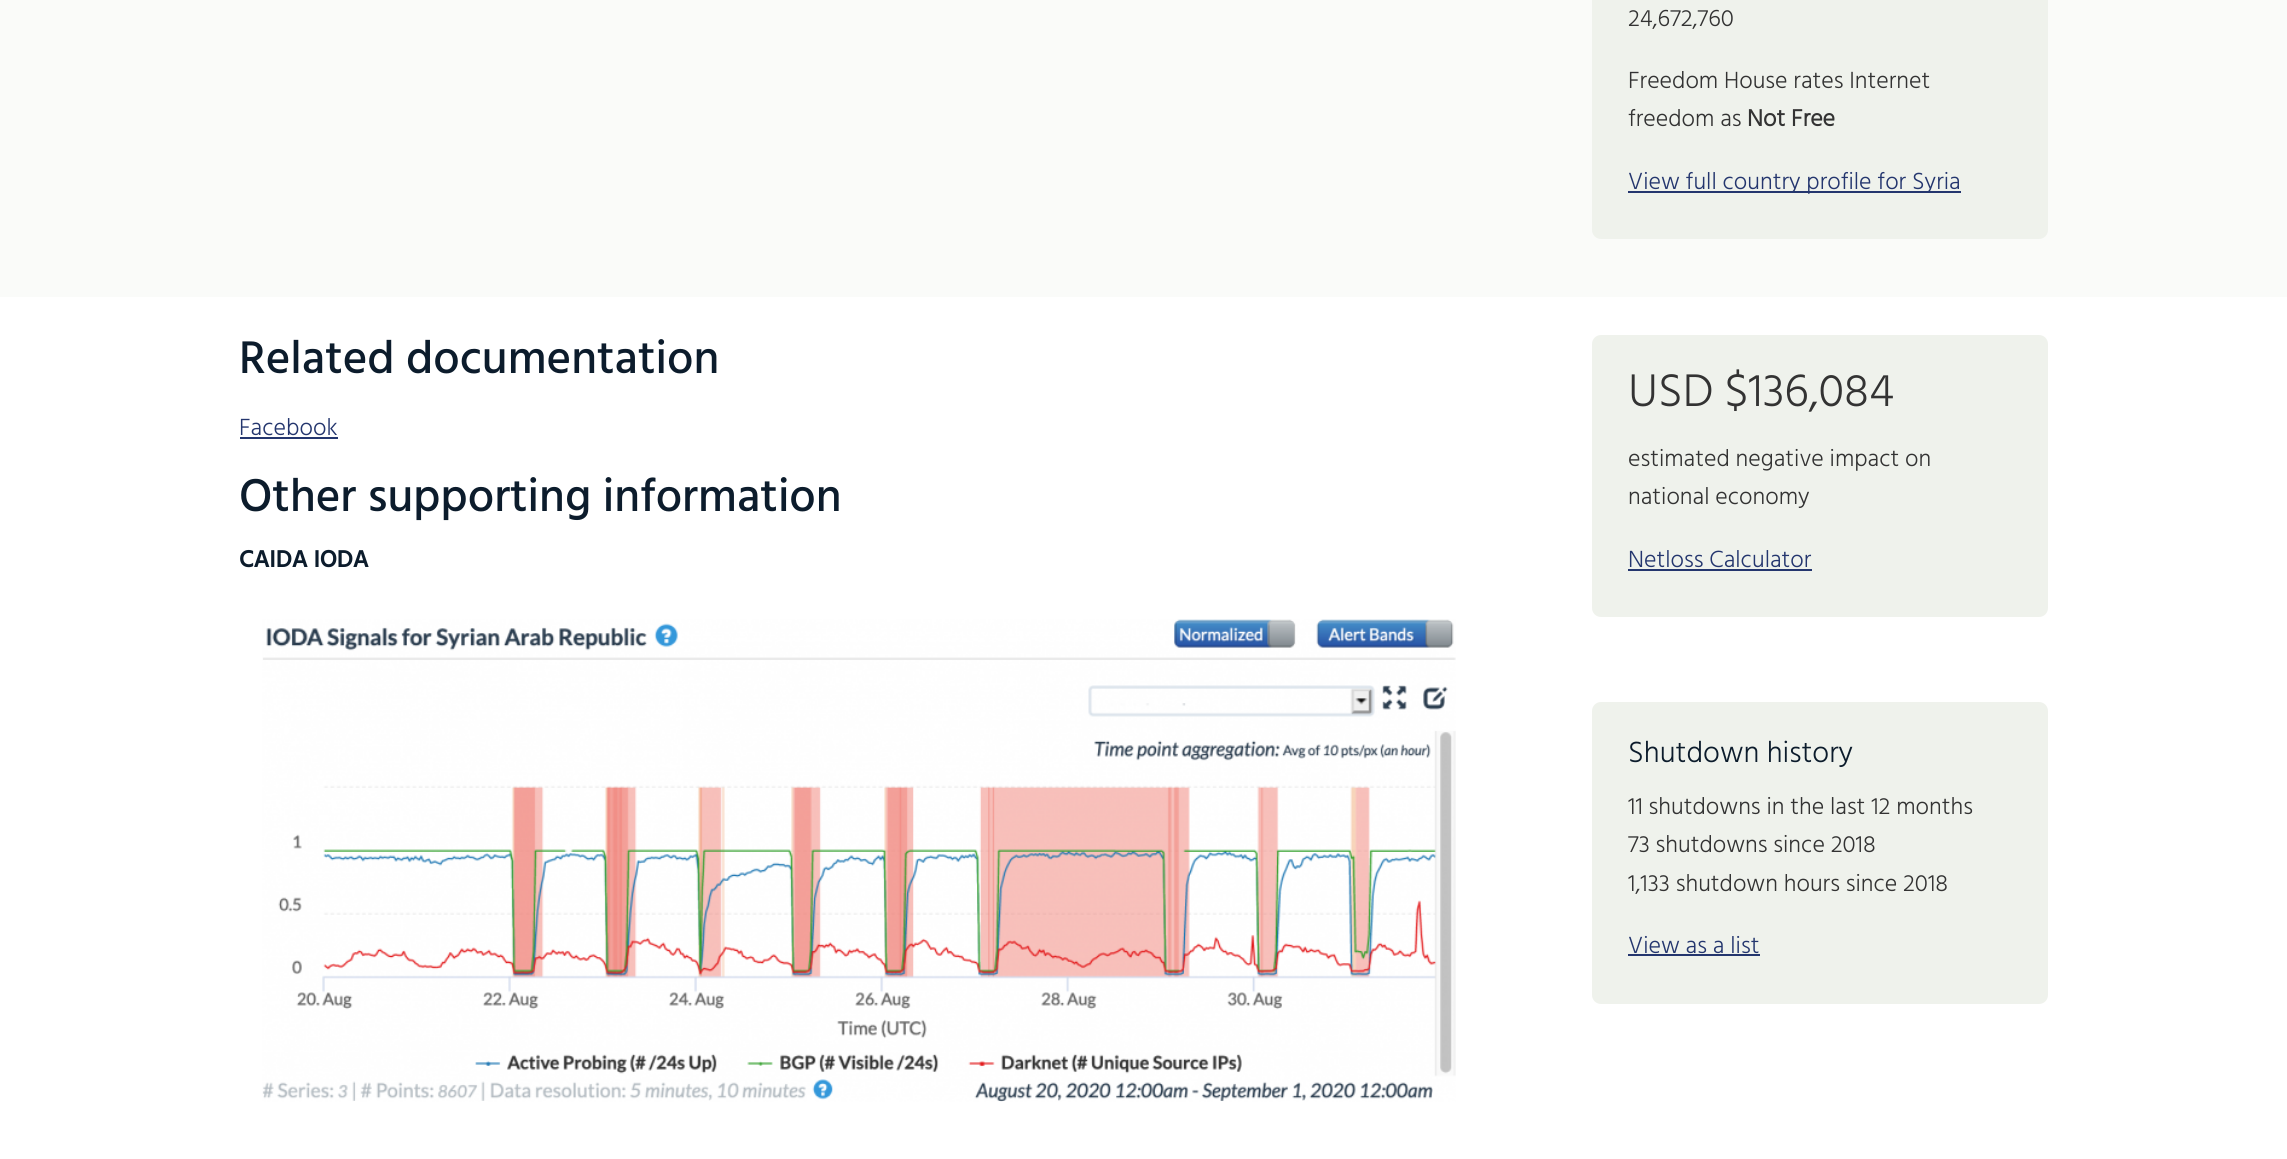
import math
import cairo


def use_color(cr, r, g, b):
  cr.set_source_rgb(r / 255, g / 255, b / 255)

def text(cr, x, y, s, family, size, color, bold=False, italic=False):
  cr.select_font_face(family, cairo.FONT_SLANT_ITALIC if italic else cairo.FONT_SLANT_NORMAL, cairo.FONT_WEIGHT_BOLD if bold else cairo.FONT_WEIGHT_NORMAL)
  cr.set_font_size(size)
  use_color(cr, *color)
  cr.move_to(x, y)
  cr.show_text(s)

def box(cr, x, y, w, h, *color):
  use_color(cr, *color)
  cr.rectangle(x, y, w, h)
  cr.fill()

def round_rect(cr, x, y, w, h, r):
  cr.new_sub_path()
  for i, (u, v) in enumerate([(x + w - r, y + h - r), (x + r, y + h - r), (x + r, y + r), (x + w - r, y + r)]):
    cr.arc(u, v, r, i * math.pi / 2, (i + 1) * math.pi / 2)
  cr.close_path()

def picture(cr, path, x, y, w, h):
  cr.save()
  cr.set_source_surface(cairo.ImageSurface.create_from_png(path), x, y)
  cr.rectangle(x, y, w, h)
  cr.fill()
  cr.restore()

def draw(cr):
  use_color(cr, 255, 255, 255)
  cr.paint()
  box(cr, 0, 0, 2287, 297, 250, 251, 249)
  use_color(cr, 239, 242, 236)
  round_rect(cr, 1592, -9, 456, 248, 9)
  cr.fill()
  box(cr, 1628, 191, 333, 2, 36, 54, 110)
  box(cr, 240, 437, 98, 2, 36, 54, 110)
  picture(cr, "img_01.png", 262, 619, 1194, 483)
  use_color(cr, 239, 242, 236)
  round_rect(cr, 1592, 335, 456, 282, 9)
  cr.fill()
  box(cr, 1628, 569, 184, 2, 36, 54, 110)
  use_color(cr, 239, 242, 236)
  round_rect(cr, 1592, 702, 456, 302, 9)
  cr.fill()
  box(cr, 1628, 954, 132, 2, 36, 54, 110)
  text(cr, 1628, 26, "24,672,760", "Hind Light", 24, (51, 51, 51))
  text(cr, 1628, 88, "Freedom House rates Internet", "Hind Light", 24, (51, 51, 51))
  text(cr, 1628, 126, "freedom as", "Hind Light", 24, (51, 51, 51))
  text(cr, 1747, 126, "Not Free", "Hind", 24, (51, 51, 51), bold=True)
  text(cr, 1628, 189, "View full country profile for Syria", "Hind Light", 24, (36, 54, 110))
  text(cr, 239, 373, "Related documentation", "Hind Medium", 46.9, (12, 28, 44))
  text(cr, 239, 435, "Facebook", "Hind Light", 24, (36, 54, 110))
  text(cr, 239, 511, "Other supporting information", "Hind Medium", 46.9, (12, 28, 44))
  text(cr, 239, 567, "CAIDA IODA", "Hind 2", 24, (12, 28, 44), bold=True)
  text(cr, 1628, 406, "USD $136,084", "Hind Light", 46.9, (51, 51, 51))
  text(cr, 1628, 466, "estimated negative impact on", "Hind Light", 24, (51, 51, 51))
  text(cr, 1628, 504, "national economy", "Hind Light", 24, (51, 51, 51))
  text(cr, 1628, 567, "Netloss Calculator", "Hind Light", 24, (36, 54, 110))
  text(cr, 1628, 762, "Shutdown history", "Hind Light", 30, (12, 28, 44))
  text(cr, 1628, 814, "11 shutdowns in the last 12 months", "Hind Light", 24, (51, 51, 51))
  text(cr, 1628, 852, "73 shutdowns since 2018", "Hind Light", 24, (51, 51, 51))
  text(cr, 1628, 891, "1,133 shutdown hours since 2018", "Hind Light", 24, (51, 51, 51))
  text(cr, 1628, 953, "View as a list", "Hind Light", 24, (36, 54, 110))


surface = cairo.ImageSurface(cairo.FORMAT_RGB24, 2287, 1159)
cr = cairo.Context(surface)
options = cairo.FontOptions()
options.set_hint_metrics(cairo.HINT_METRICS_OFF)
options.set_hint_style(cairo.HINT_STYLE_NONE)
cr.set_font_options(options)
cr.set_miter_limit(4)
draw(cr)
surface.write_to_png("out.png")
